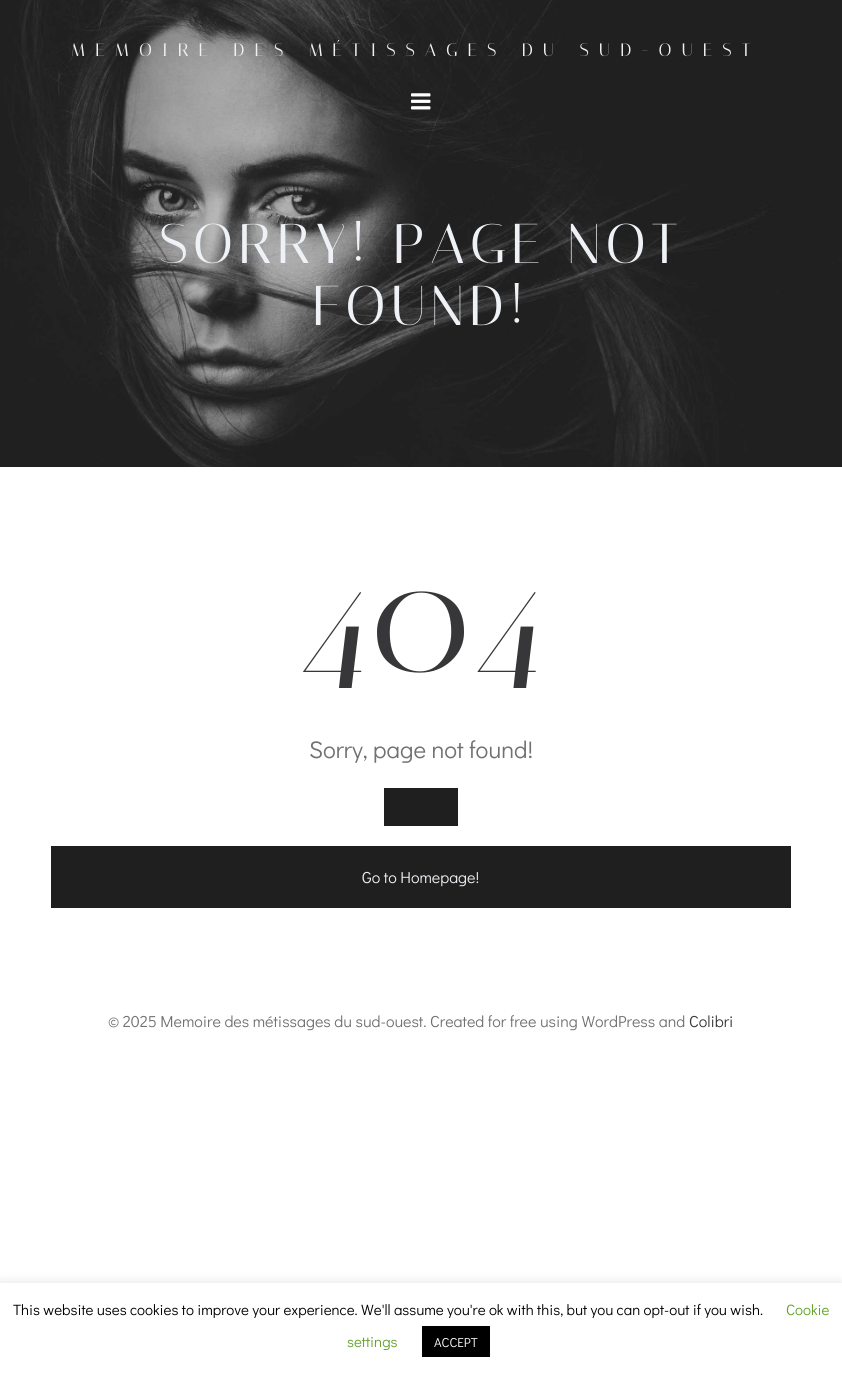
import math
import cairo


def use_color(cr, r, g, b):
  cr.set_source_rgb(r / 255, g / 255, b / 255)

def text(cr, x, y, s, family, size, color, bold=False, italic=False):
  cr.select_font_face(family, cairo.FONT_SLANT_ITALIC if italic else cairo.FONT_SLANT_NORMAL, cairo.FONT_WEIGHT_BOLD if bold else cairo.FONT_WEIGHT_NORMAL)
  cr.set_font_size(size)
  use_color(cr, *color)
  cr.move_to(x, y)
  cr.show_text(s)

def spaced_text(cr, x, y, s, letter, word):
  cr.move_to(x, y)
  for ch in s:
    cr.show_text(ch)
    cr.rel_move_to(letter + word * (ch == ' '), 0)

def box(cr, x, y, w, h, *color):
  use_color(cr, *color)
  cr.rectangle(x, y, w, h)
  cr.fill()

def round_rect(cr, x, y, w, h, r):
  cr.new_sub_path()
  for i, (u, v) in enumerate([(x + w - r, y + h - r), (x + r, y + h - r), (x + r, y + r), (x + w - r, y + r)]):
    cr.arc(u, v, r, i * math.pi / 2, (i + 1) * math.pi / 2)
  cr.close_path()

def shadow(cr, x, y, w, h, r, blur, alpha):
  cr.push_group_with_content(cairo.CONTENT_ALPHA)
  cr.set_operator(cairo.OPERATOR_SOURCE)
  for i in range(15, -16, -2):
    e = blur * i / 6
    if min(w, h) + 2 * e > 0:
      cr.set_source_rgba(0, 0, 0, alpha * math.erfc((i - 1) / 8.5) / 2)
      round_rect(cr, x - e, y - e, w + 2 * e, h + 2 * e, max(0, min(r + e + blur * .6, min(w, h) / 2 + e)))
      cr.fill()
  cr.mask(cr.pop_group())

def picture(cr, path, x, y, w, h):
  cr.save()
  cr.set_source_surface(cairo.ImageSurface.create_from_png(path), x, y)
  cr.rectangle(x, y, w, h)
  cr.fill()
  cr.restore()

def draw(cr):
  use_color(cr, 255, 255, 255)
  cr.paint()
  picture(cr, "img_02.png", 0, 0, 842, 467)
  picture(cr, "img_01.png", 411, 93, 20, 17)
  box(cr, 384, 788, 74, 38, 31, 31, 32)
  box(cr, 51, 846, 740, 62, 31, 31, 32)
  use_color(cr, 172, 171, 171)
  shadow(cr, 0, 1282, 842, 91, 0, 5, 0.3)
  box(cr, 0, 1283, 842, 91, 255, 255, 255)
  box(cr, 422, 1326, 68, 31, 0, 0, 0)
  cr.select_font_face("Italiana")
  cr.set_font_size(18)
  use_color(cr, 238, 241, 245)
  spaced_text(cr, 71, 56, "MEMOIRE DES MÉTISSAGES DU SUD-OUEST", 10, 0)
  cr.set_font_size(56)
  spaced_text(cr, 159, 263, "SORRY! PAGE NOT", 5, 0)
  spaced_text(cr, 312, 325, "FOUND!", 5, 0)
  text(cr, 298, 672, "404", "Italiana", 160, (55, 55, 57))
  text(cr, 309, 758, "Sorry, page not found!", "Didact Gothic", 24, (113, 113, 117))
  text(cr, 362, 883, "Go to Homepage!", "Didact Gothic", 16, (238, 241, 245))
  text(cr, 108, 1027, "© 2025 Memoire des métissages du sud-ouest. Created for free using WordPress and", "Didact Gothic", 16, (113, 113, 117))
  text(cr, 689, 1027, "Colibri", "Didact Gothic", 16, (55, 55, 57))
  text(cr, 13, 1315, "This website uses cookies to improve your experience. We'll assume you're ok with this, but you can opt-out if you wish.", "Didact Gothic", 15, (0, 0, 0))
  text(cr, 786, 1315, "Cookie", "Didact Gothic", 15, (98, 163, 41))
  text(cr, 347, 1347, "settings", "Didact Gothic", 15, (98, 163, 41))
  text(cr, 434, 1347, "ACCEPT", "Didact Gothic", 13, (255, 255, 255))


surface = cairo.ImageSurface(cairo.FORMAT_RGB24, 842, 1374)
cr = cairo.Context(surface)
options = cairo.FontOptions()
options.set_hint_metrics(cairo.HINT_METRICS_OFF)
options.set_hint_style(cairo.HINT_STYLE_NONE)
cr.set_font_options(options)
cr.set_miter_limit(4)
draw(cr)
surface.write_to_png("out.png")
